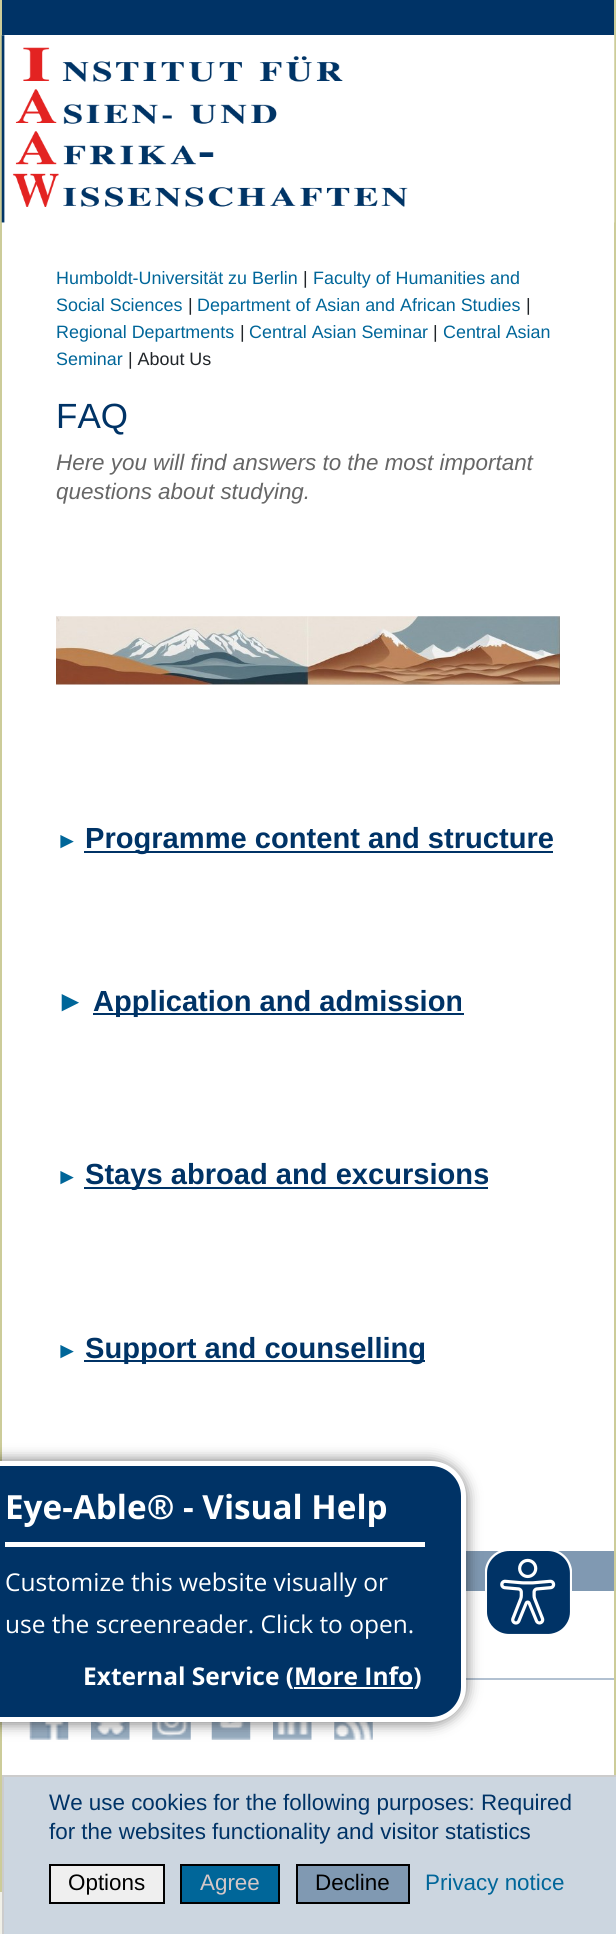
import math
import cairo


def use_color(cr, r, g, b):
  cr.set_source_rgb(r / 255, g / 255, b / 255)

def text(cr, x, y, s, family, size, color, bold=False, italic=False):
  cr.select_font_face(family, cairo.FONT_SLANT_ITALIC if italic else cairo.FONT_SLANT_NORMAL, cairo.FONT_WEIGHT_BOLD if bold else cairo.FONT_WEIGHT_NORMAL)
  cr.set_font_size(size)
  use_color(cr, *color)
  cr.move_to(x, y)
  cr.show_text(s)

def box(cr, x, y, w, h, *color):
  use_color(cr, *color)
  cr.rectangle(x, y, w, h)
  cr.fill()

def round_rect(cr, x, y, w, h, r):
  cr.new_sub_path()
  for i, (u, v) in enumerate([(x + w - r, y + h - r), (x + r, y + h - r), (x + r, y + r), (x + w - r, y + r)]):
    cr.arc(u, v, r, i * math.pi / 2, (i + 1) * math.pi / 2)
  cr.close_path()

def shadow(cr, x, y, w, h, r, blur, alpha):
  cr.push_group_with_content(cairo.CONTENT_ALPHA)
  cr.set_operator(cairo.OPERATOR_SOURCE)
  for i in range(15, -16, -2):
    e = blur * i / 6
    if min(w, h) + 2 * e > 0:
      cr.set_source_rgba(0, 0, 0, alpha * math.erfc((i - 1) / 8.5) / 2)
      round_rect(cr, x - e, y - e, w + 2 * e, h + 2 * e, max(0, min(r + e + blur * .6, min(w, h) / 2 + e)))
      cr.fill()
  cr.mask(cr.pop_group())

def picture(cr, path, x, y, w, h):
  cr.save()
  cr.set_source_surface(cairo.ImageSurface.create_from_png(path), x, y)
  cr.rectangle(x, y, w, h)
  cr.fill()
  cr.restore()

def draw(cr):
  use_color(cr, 240, 240, 232)
  cr.paint()
  box(cr, 2, 0, 612, 35, 0, 51, 102)
  box(cr, 2, 35, 612, 1740, 255, 255, 255)
  box(cr, 614, 0, 2, 1775, 204, 204, 153)
  box(cr, 0, 0, 2, 1461, 204, 204, 153)
  picture(cr, "img_01.png", 1, 35, 614, 188)
  picture(cr, "img_02.png", 56, 616, 504, 69)
  box(cr, 84, 851, 469, 2, 0, 51, 102)
  box(cr, 93, 1013, 371, 2, 0, 51, 102)
  box(cr, 84, 1187, 404, 2, 0, 51, 102)
  box(cr, 84, 1360, 341, 2, 0, 51, 102)
  box(cr, 466, 1551, 148, 40, 128, 153, 178)
  box(cr, 0, 1722, 2, 170, 204, 204, 153)
  box(cr, 466, 1678, 148, 2, 178, 193, 209)
  picture(cr, "img_04.png", 29, 1722, 40, 18)
  picture(cr, "img_05.png", 91, 1722, 39, 18)
  picture(cr, "img_06.png", 152, 1722, 39, 18)
  picture(cr, "img_07.png", 211, 1722, 40, 18)
  picture(cr, "img_08.png", 273, 1722, 39, 18)
  picture(cr, "img_09.png", 334, 1722, 39, 18)
  use_color(cr, 0, 0, 0)
  shadow(cr, -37, 1460, 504, 264, 37, 7, 0.5)
  use_color(cr, 0, 51, 102)
  round_rect(cr, -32.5, 1463.5, 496, 256, 32.5)
  cr.fill_preserve()
  use_color(cr, 255, 255, 255)
  cr.set_line_width(5)
  cr.stroke()
  box(cr, 5, 1542, 420, 5, 255, 255, 255)
  box(cr, 294, 1687, 119, 2, 255, 255, 255)
  picture(cr, "img_03.png", 485, 1551, 87, 83)
  use_color(cr, 204, 214, 224)
  cr.rectangle(3, 1776, 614, 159)
  cr.fill_preserve()
  use_color(cr, 204, 204, 204)
  cr.set_line_width(2)
  cr.stroke()
  use_color(cr, 239, 239, 239)
  cr.rectangle(50, 1865, 114, 38)
  cr.fill_preserve()
  use_color(cr, 0, 0, 0)
  cr.stroke()
  use_color(cr, 0, 102, 153)
  cr.rectangle(181, 1865, 98, 38)
  cr.fill_preserve()
  use_color(cr, 0, 0, 0)
  cr.stroke()
  use_color(cr, 128, 153, 178)
  cr.rectangle(297, 1865, 112, 38)
  cr.fill_preserve()
  use_color(cr, 0, 0, 0)
  cr.stroke()
  text(cr, 56, 284, "Humboldt-Universität zu Berlin", "Liberation Sans", 17.9, (0, 102, 153))
  text(cr, 303, 284, "|", "Liberation Sans", 17.9, (33, 37, 41))
  text(cr, 313, 284, "Faculty of Humanities and", "Liberation Sans", 17.9, (0, 102, 153))
  text(cr, 56, 311, "Social Sciences", "Liberation Sans", 17.9, (0, 102, 153))
  text(cr, 188, 311, "|", "Liberation Sans", 17.9, (33, 37, 41))
  text(cr, 197, 311, "Department of Asian and African Studies", "Liberation Sans", 17.9, (0, 102, 153))
  text(cr, 526, 311, "|", "Liberation Sans", 17.9, (33, 37, 41))
  text(cr, 56, 338, "Regional Departments", "Liberation Sans", 17.9, (0, 102, 153))
  text(cr, 240, 338, "|", "Liberation Sans", 17.9, (33, 37, 41))
  text(cr, 249, 338, "Central Asian Seminar", "Liberation Sans", 17.9, (0, 102, 153))
  text(cr, 433, 338, "|", "Liberation Sans", 17.9, (33, 37, 41))
  text(cr, 443, 338, "Central Asian", "Liberation Sans", 17.9, (0, 102, 153))
  text(cr, 56, 365, "Seminar", "Liberation Sans", 17.9, (0, 102, 153))
  text(cr, 128, 365, "| About Us", "Liberation Sans", 17.9, (33, 37, 41))
  text(cr, 56, 428, "FAQ", "Liberation Sans", 35, (0, 51, 102))
  text(cr, 56, 470, "Here you will find answers to the most important", "Liberation Sans", 22.4, (102, 102, 102), italic=True)
  text(cr, 56, 499, "questions about studying.", "Liberation Sans", 22.4, (102, 102, 102), italic=True)
  text(cr, 56, 848, "►", "Liberation Sans", 22.4, (0, 102, 153), bold=True)
  text(cr, 85, 848, "Programme content and structure", "Liberation Sans", 29.1, (0, 51, 102), bold=True)
  text(cr, 56, 1011, "►", "Liberation Sans", 29.1, (0, 102, 153), bold=True)
  text(cr, 93, 1011, "Application and admission", "Liberation Sans", 29.1, (0, 51, 102), bold=True)
  text(cr, 56, 1184, "►", "Liberation Sans", 22.4, (0, 102, 153), bold=True)
  text(cr, 85, 1184, "Stays abroad and excursions", "Liberation Sans", 29.1, (0, 51, 102), bold=True)
  text(cr, 56, 1358, "►", "Liberation Sans", 22.4, (0, 102, 153), bold=True)
  text(cr, 85, 1358, "Support and counselling", "Liberation Sans", 29.1, (0, 51, 102), bold=True)
  text(cr, 5, 1519, "Eye-Able® - Visual Help", "Open Sans", 33.25, (255, 255, 255), bold=True)
  text(cr, 5, 1591, "Customize this website visually or", "Open Sans", 24.5, (255, 255, 255))
  text(cr, 5, 1633, "use the screenreader. Click to open.", "Open Sans", 24.5, (255, 255, 255))
  text(cr, 83, 1685, "External Service (More Info)", "Open Sans", 24.5, (255, 255, 255), bold=True)
  text(cr, 49, 1810, "We use cookies for the following purposes: Required", "Liberation Sans", 22.4, (0, 51, 102))
  text(cr, 49, 1839, "for the websites functionality and visitor statistics", "Liberation Sans", 22.4, (0, 51, 102))
  text(cr, 68, 1890, "Options", "Liberation Sans", 22.4, (0, 0, 0))
  text(cr, 200, 1890, "Agree", "Liberation Sans", 22.4, (213, 199, 199))
  text(cr, 315, 1890, "Decline", "Liberation Sans", 22.4, (0, 0, 0))
  text(cr, 425, 1890, "Privacy notice", "Liberation Sans", 22.4, (0, 102, 153))


surface = cairo.ImageSurface(cairo.FORMAT_RGB24, 616, 1934)
cr = cairo.Context(surface)
options = cairo.FontOptions()
options.set_hint_metrics(cairo.HINT_METRICS_OFF)
options.set_hint_style(cairo.HINT_STYLE_NONE)
cr.set_font_options(options)
cr.set_miter_limit(4)
draw(cr)
surface.write_to_png("out.png")
